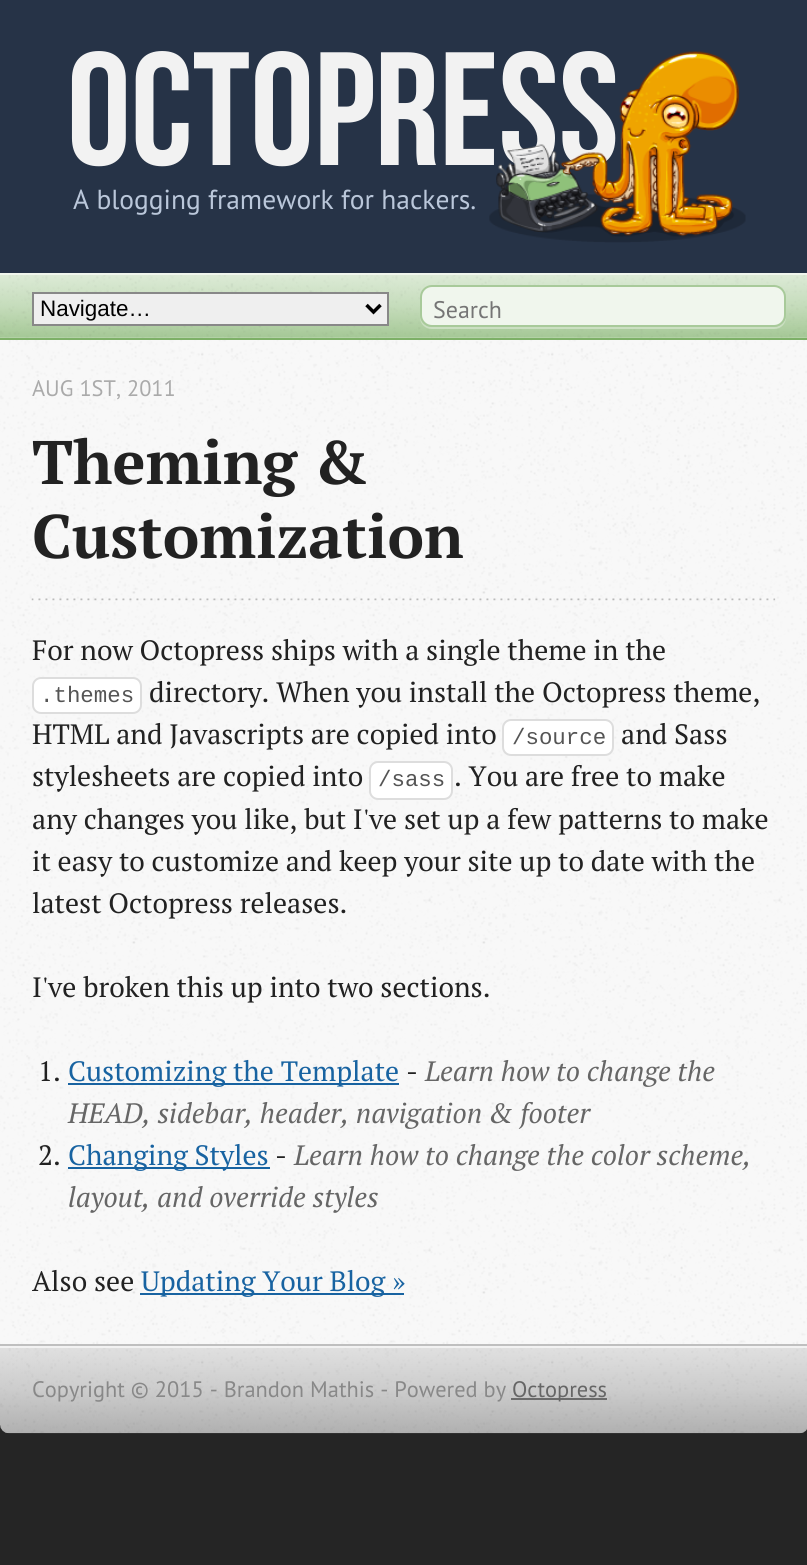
import math
import cairo


def use_color(cr, r, g, b):
  cr.set_source_rgb(r / 255, g / 255, b / 255)

def text(cr, x, y, s, family, size, color, bold=False, italic=False):
  cr.select_font_face(family, cairo.FONT_SLANT_ITALIC if italic else cairo.FONT_SLANT_NORMAL, cairo.FONT_WEIGHT_BOLD if bold else cairo.FONT_WEIGHT_NORMAL)
  cr.set_font_size(size)
  use_color(cr, *color)
  cr.move_to(x, y)
  cr.show_text(s)

def box(cr, x, y, w, h, *color):
  use_color(cr, *color)
  cr.rectangle(x, y, w, h)
  cr.fill()

def round_rect(cr, x, y, w, h, r):
  cr.new_sub_path()
  for i, (u, v) in enumerate([(x + w - r, y + h - r), (x + r, y + h - r), (x + r, y + r), (x + w - r, y + r)]):
    cr.arc(u, v, r, i * math.pi / 2, (i + 1) * math.pi / 2)
  cr.close_path()

def picture(cr, path, x, y, w, h):
  cr.save()
  cr.set_source_surface(cairo.ImageSurface.create_from_png(path), x, y)
  cr.rectangle(x, y, w, h)
  cr.fill()
  cr.restore()

def draw(cr):
  use_color(cr, 37, 37, 37)
  cr.paint()
  box(cr, 0, 0, 807, 273, 38, 51, 71)
  picture(cr, "img_02.png", 0, 275, 807, 63)
  box(cr, 0, 273, 807, 2, 240, 246, 237)
  box(cr, 0, 338, 807, 2, 125, 176, 103)
  use_color(cr, 239, 239, 239)
  cr.rectangle(33, 293, 355, 32)
  cr.fill_preserve()
  use_color(cr, 136, 136, 136)
  cr.stroke()
  cr.new_path()
  cr.move_to(366.5, 305)
  cr.line_to(373.5, 312)
  cr.line_to(380.5, 305)
  use_color(cr, 0, 0, 0)
  cr.set_line_width(3.5)
  cr.stroke()
  use_color(cr, 203, 223, 194)
  cr.new_path()
  cr.move_to(420, 315)
  cr.line_to(420, 317)
  cr.curve_to(420, 324, 425, 329, 432, 329)
  cr.line_to(774, 329)
  cr.curve_to(781, 329, 786, 324, 786, 317)
  cr.line_to(786, 296)
  cr.line_to(786, 315)
  cr.curve_to(786, 322, 780, 327, 774, 327)
  cr.line_to(432, 327)
  cr.curve_to(425, 327, 420, 322, 420, 315)
  cr.close_path()
  cr.fill()
  use_color(cr, 240, 246, 237)
  round_rect(cr, 421, 286, 364, 40, 11)
  cr.fill_preserve()
  use_color(cr, 168, 202, 154)
  cr.set_line_width(2)
  cr.stroke()
  box(cr, 0, 1344, 807, 2, 191, 191, 191)
  box(cr, 0, 340, 807, 1004, 248, 248, 248)
  picture(cr, "img_03.png", 0, 340, 807, 1004)
  picture(cr, "img_04.png", 31, 598, 745, 3)
  use_color(cr, 255, 255, 255)
  round_rect(cr, 33, 678, 108, 35, 8)
  cr.fill_preserve()
  use_color(cr, 221, 221, 221)
  cr.stroke()
  use_color(cr, 255, 255, 255)
  round_rect(cr, 503, 720, 110, 35, 8)
  cr.fill_preserve()
  use_color(cr, 221, 221, 221)
  cr.stroke()
  use_color(cr, 255, 255, 255)
  round_rect(cr, 370, 762, 82, 37, 8)
  cr.fill_preserve()
  use_color(cr, 221, 221, 221)
  cr.stroke()
  box(cr, 68, 1083, 331, 2, 24, 99, 161)
  box(cr, 68, 1167, 202, 2, 24, 99, 161)
  box(cr, 140, 1293, 264, 2, 24, 99, 161)
  picture(cr, "img_05.png", 0, 1348, 807, 86)
  box(cr, 0, 1346, 807, 2, 242, 242, 242)
  box(cr, 511, 1398, 96, 2, 107, 107, 107)
  text(cr, 67, 165, "OCTOPRESS", "Bebas Neue", 161, (242, 242, 242))
  picture(cr, "img_01.png", 489, 51, 257, 192)
  text(cr, 73, 209, "A blogging framework for hackers.", "PT Sans", 27.5, (186, 199, 218))
  text(cr, 40, 316, "Navigate…", "Liberation Sans", 22.4, (0, 0, 0))
  text(cr, 433, 318, "Search", "PT Sans", 24, (117, 117, 117))
  text(cr, 32, 396, "AUG 1ST, 2011", "PT Sans", 22.4, (170, 170, 170))
  text(cr, 32, 484, "Theming &", "PT Serif", 61.5, (34, 34, 34), bold=True)
  text(cr, 32, 558, "Customization", "PT Serif", 61.5, (34, 34, 34), bold=True)
  text(cr, 32, 660, "For now Octopress ships with a single theme in the", "PT Serif", 28, (34, 34, 34))
  text(cr, 40, 702, ".themes", "Liberation Mono", 22.4, (85, 85, 85))
  text(cr, 149, 702, "directory. When you install the Octopress theme,", "PT Serif", 28, (34, 34, 34))
  text(cr, 32, 744, "HTML and Javascripts are copied into", "PT Serif", 28, (34, 34, 34))
  text(cr, 512, 744, "/source", "Liberation Mono", 22.4, (85, 85, 85))
  text(cr, 621, 744, "and Sass", "PT Serif", 28, (34, 34, 34))
  text(cr, 32, 786, "stylesheets are copied into", "PT Serif", 28, (34, 34, 34))
  text(cr, 378, 786, "/sass", "Liberation Mono", 22.4, (85, 85, 85))
  text(cr, 454, 786, ". You are free to make", "PT Serif", 28, (34, 34, 34))
  text(cr, 32, 829, "any changes you like, but I've set up a few patterns to make", "PT Serif", 28, (34, 34, 34))
  text(cr, 32, 871, "it easy to customize and keep your site up to date with the", "PT Serif", 28, (34, 34, 34))
  text(cr, 32, 913, "latest Octopress releases.", "PT Serif", 28, (34, 34, 34))
  text(cr, 32, 997, "I've broken this up into two sections.", "PT Serif", 28, (34, 34, 34))
  text(cr, 38, 1081, "1.", "PT Serif", 28, (34, 34, 34))
  text(cr, 68, 1081, "Customizing the Template", "PT Serif", 28, (24, 99, 161))
  text(cr, 406, 1081, "-", "PT Serif", 28, (34, 34, 34))
  text(cr, 425, 1081, "Learn how to change the", "PT Serif", 28, (102, 102, 102), italic=True)
  text(cr, 68, 1123, "HEAD, sidebar, header, navigation & footer", "PT Serif", 28, (102, 102, 102), italic=True)
  text(cr, 38, 1165, "2.", "PT Serif", 28, (34, 34, 34))
  text(cr, 68, 1165, "Changing Styles", "PT Serif", 28, (24, 99, 161))
  text(cr, 275, 1165, "-", "PT Serif", 28, (34, 34, 34))
  text(cr, 294, 1165, "Learn how to change the color scheme,", "PT Serif", 28, (102, 102, 102), italic=True)
  text(cr, 68, 1207, "layout, and override styles", "PT Serif", 28, (102, 102, 102), italic=True)
  text(cr, 32, 1291, "Also see", "PT Serif", 28, (34, 34, 34))
  text(cr, 141, 1291, "Updating Your Blog »", "PT Serif", 28, (24, 99, 161))
  text(cr, 32, 1397, "Copyright © 2015 - Brandon Mathis - Powered by", "PT Sans", 22.4, (136, 136, 136))
  text(cr, 512, 1397, "Octopress", "PT Sans", 22.4, (102, 102, 102))


surface = cairo.ImageSurface(cairo.FORMAT_RGB24, 807, 1565)
cr = cairo.Context(surface)
options = cairo.FontOptions()
options.set_hint_metrics(cairo.HINT_METRICS_OFF)
options.set_hint_style(cairo.HINT_STYLE_NONE)
cr.set_font_options(options)
cr.set_miter_limit(4)
draw(cr)
surface.write_to_png("out.png")
